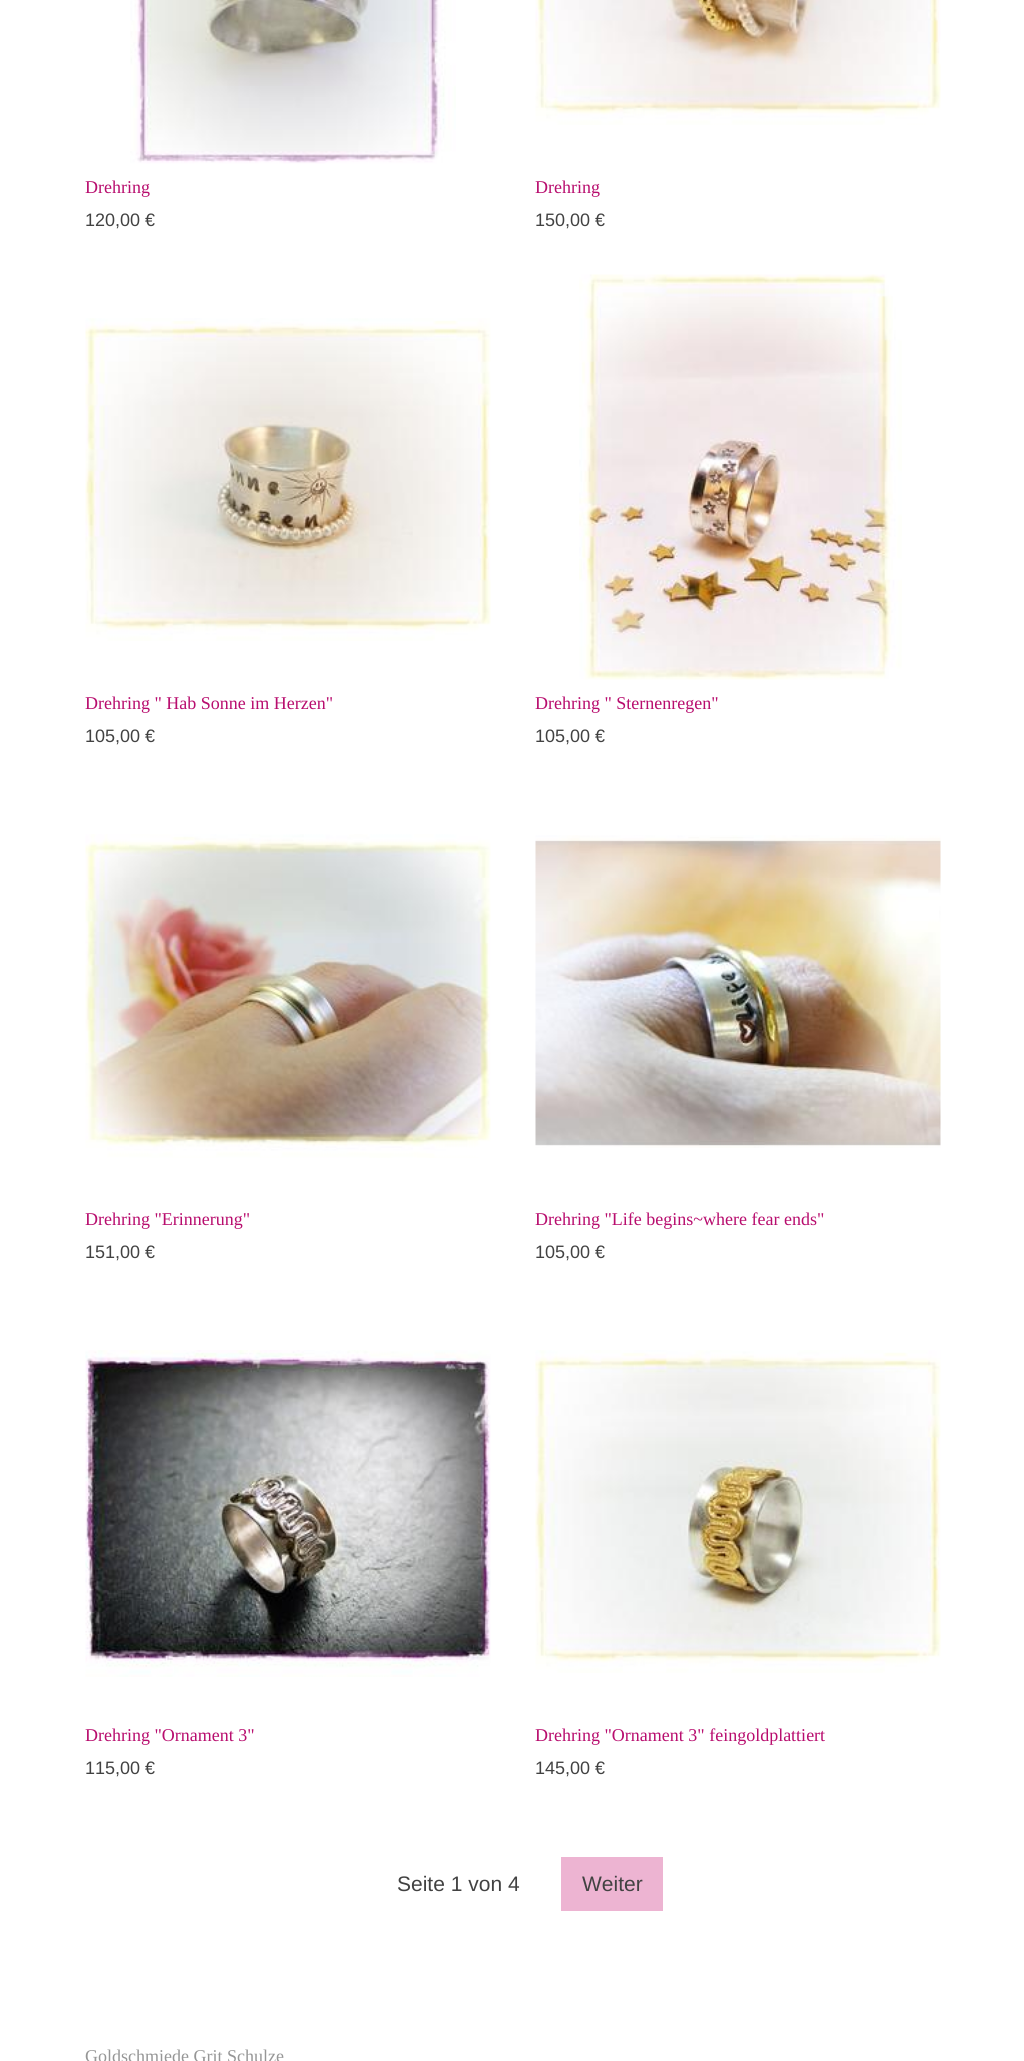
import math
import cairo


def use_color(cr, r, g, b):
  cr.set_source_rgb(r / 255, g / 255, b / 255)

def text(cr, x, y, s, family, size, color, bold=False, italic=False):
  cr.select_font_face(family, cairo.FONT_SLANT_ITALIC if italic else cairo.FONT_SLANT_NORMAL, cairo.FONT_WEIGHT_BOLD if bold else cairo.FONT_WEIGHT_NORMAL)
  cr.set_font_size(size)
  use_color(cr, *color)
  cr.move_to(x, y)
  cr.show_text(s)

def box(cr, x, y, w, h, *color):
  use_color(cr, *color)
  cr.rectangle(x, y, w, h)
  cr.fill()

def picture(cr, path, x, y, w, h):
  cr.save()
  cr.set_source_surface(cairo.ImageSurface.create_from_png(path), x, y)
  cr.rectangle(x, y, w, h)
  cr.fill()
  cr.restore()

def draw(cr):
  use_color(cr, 255, 255, 255)
  cr.paint()
  picture(cr, "img_01.png", 130, 0, 326, 164)
  picture(cr, "img_02.png", 535, 0, 406, 125)
  picture(cr, "img_03.png", 85, 318, 406, 323)
  picture(cr, "img_04.png", 579, 274, 323, 406)
  picture(cr, "img_05.png", 85, 834, 406, 324)
  picture(cr, "img_06.png", 535, 835, 406, 313)
  picture(cr, "img_07.png", 85, 1350, 406, 327)
  picture(cr, "img_08.png", 535, 1350, 406, 323)
  box(cr, 561, 1857, 102, 54, 237, 180, 210)
  text(cr, 85, 193, "Drehring", "Liberation Serif", 18, (184, 13, 110))
  text(cr, 85, 226, "120,00 €", "Liberation Sans", 18, (66, 66, 66))
  text(cr, 535, 193, "Drehring", "Liberation Serif", 18, (184, 13, 110))
  text(cr, 535, 226, "150,00 €", "Liberation Sans", 18, (66, 66, 66))
  text(cr, 85, 709, "Drehring \" Hab Sonne im Herzen\"", "Liberation Serif", 18, (184, 13, 110))
  text(cr, 85, 742, "105,00 €", "Liberation Sans", 18, (66, 66, 66))
  text(cr, 535, 709, "Drehring \" Sternenregen\"", "Liberation Serif", 18, (184, 13, 110))
  text(cr, 535, 742, "105,00 €", "Liberation Sans", 18, (66, 66, 66))
  text(cr, 85, 1225, "Drehring \"Erinnerung\"", "Liberation Serif", 18, (184, 13, 110))
  text(cr, 85, 1258, "151,00 €", "Liberation Sans", 18, (66, 66, 66))
  text(cr, 535, 1225, "Drehring \"Life begins~where fear ends\"", "Liberation Serif", 18, (184, 13, 110))
  text(cr, 535, 1258, "105,00 €", "Liberation Sans", 18, (66, 66, 66))
  text(cr, 85, 1741, "Drehring \"Ornament 3\"", "Liberation Serif", 18, (184, 13, 110))
  text(cr, 85, 1774, "115,00 €", "Liberation Sans", 18, (66, 66, 66))
  text(cr, 535, 1741, "Drehring \"Ornament 3\" feingoldplattiert", "Liberation Serif", 18, (184, 13, 110))
  text(cr, 535, 1774, "145,00 €", "Liberation Sans", 18, (66, 66, 66))
  text(cr, 397, 1891, "Seite 1 von 4", "Liberation Sans", 21, (66, 66, 66))
  text(cr, 582, 1891, "Weiter", "Liberation Sans", 21, (66, 66, 66))
  text(cr, 85, 2062, "Goldschmiede Grit Schulze", "Liberation Serif", 18, (150, 150, 150))


surface = cairo.ImageSurface(cairo.FORMAT_RGB24, 1024, 2061)
cr = cairo.Context(surface)
options = cairo.FontOptions()
options.set_hint_metrics(cairo.HINT_METRICS_OFF)
options.set_hint_style(cairo.HINT_STYLE_NONE)
cr.set_font_options(options)
cr.set_miter_limit(4)
draw(cr)
surface.write_to_png("out.png")
